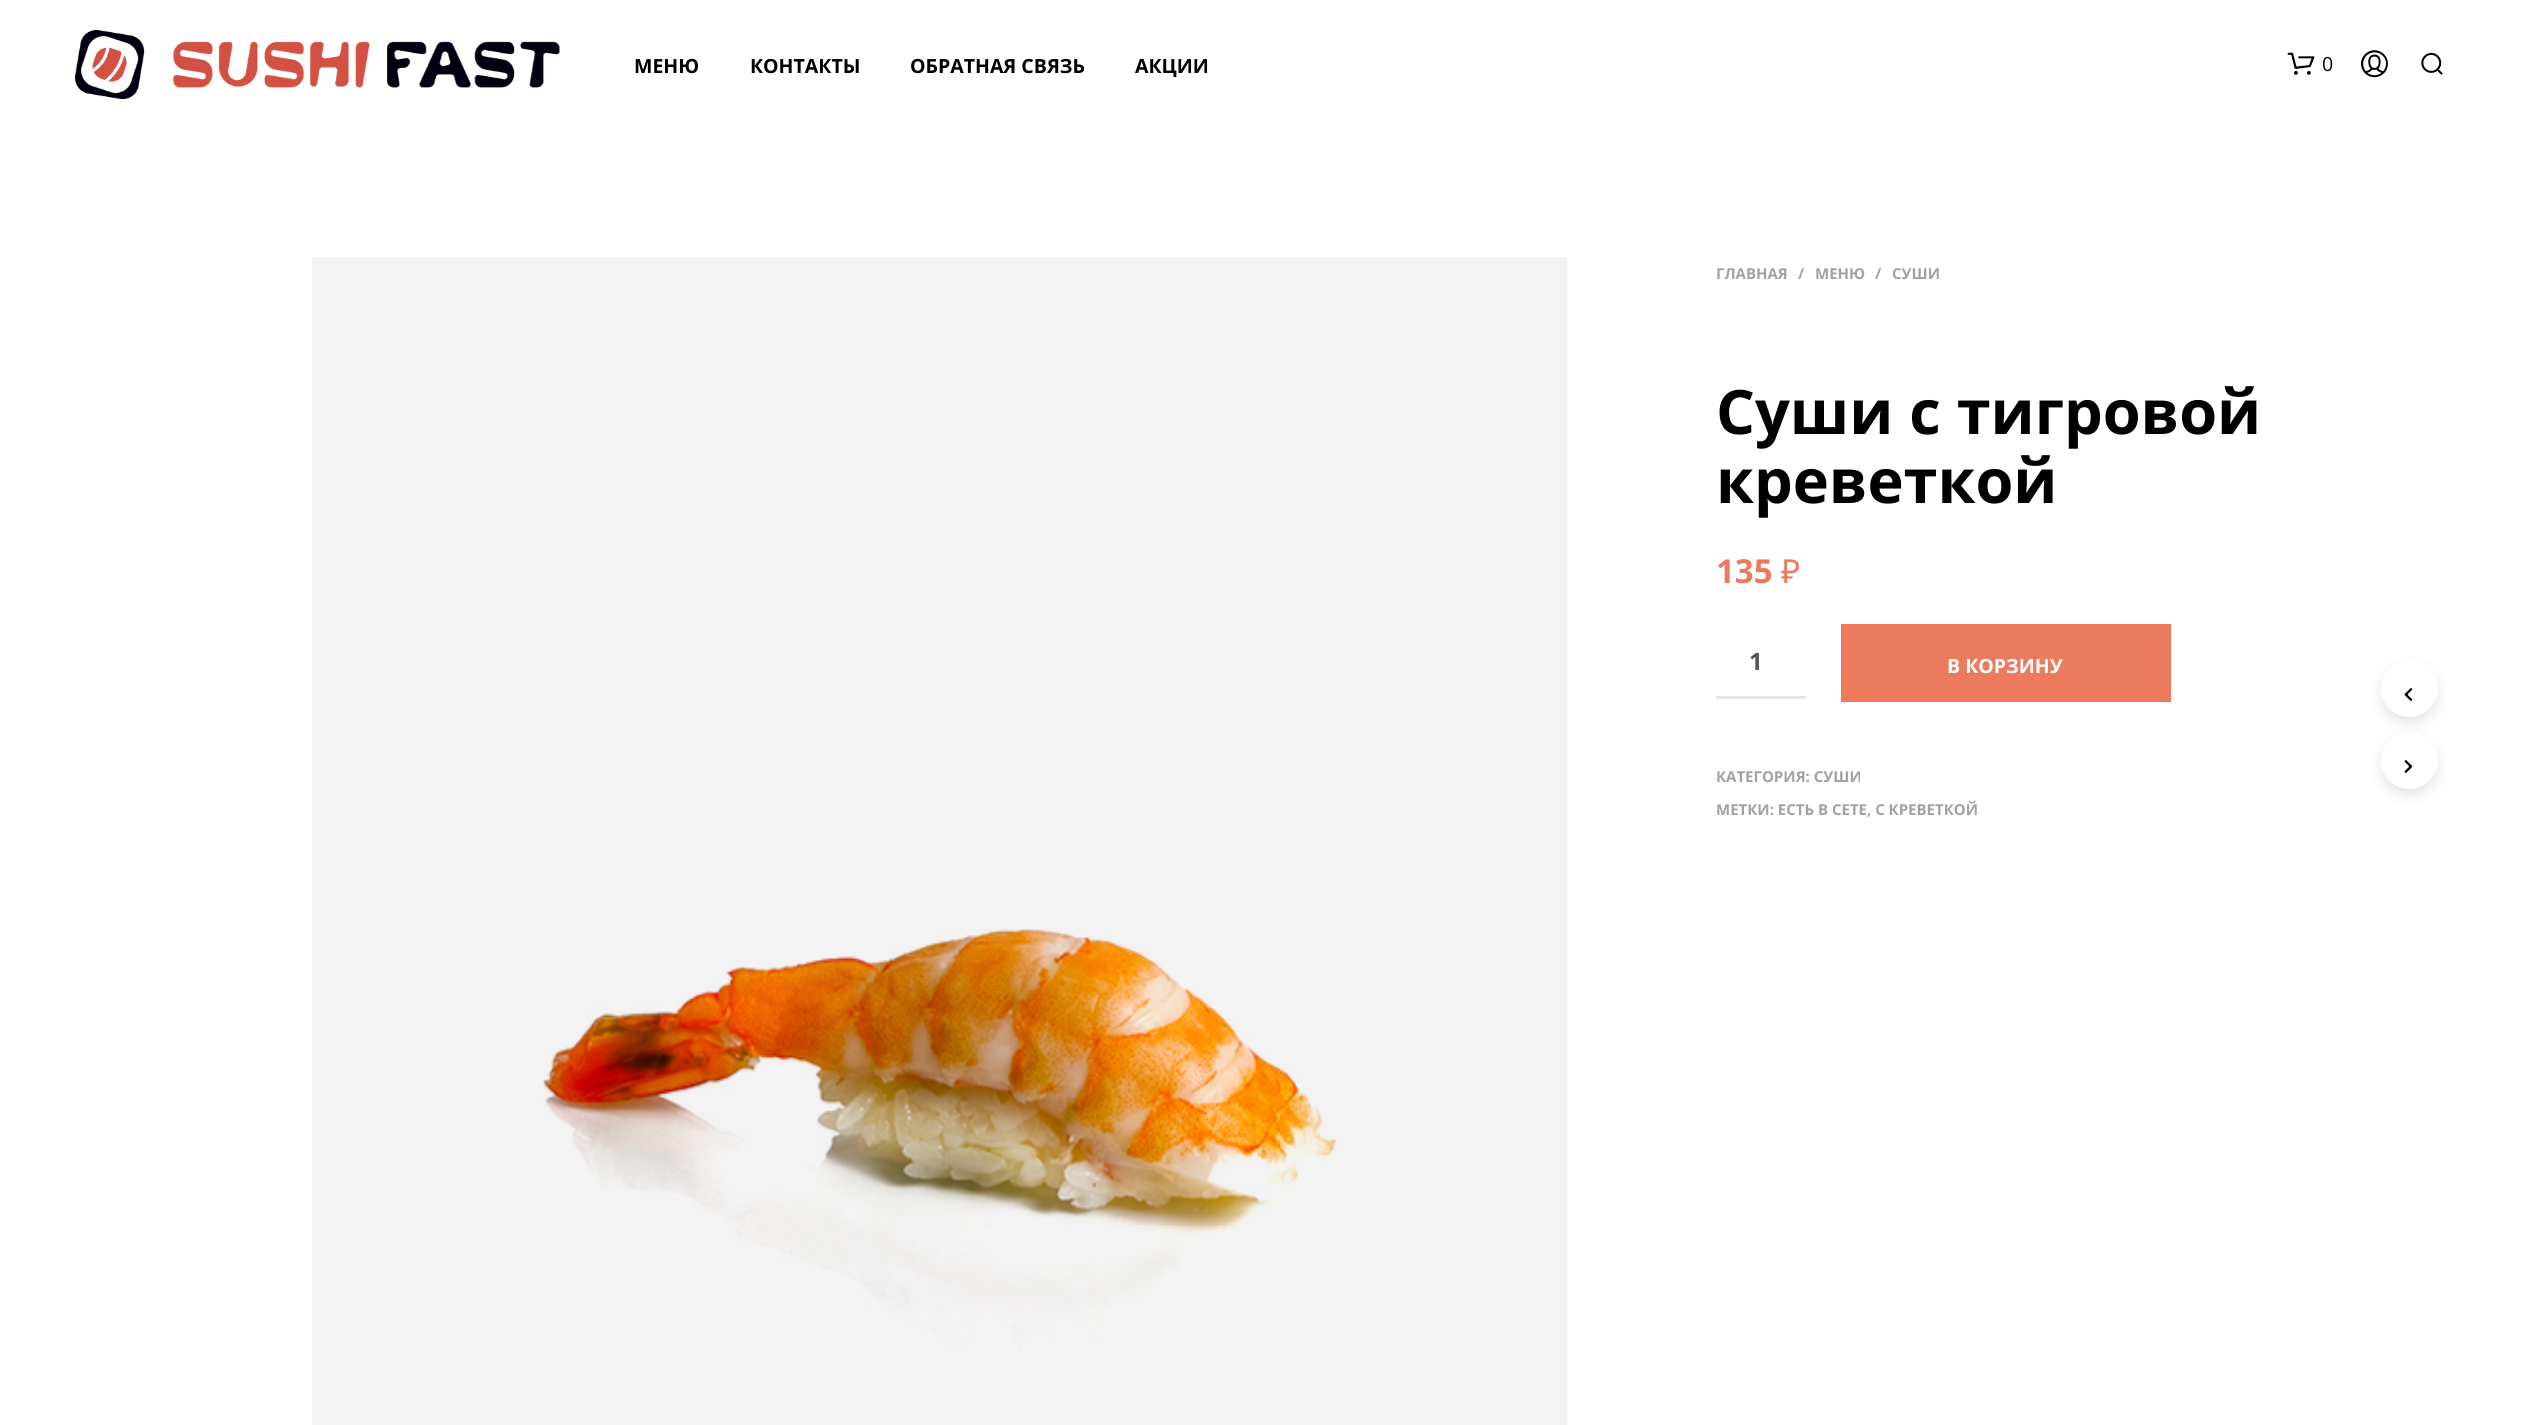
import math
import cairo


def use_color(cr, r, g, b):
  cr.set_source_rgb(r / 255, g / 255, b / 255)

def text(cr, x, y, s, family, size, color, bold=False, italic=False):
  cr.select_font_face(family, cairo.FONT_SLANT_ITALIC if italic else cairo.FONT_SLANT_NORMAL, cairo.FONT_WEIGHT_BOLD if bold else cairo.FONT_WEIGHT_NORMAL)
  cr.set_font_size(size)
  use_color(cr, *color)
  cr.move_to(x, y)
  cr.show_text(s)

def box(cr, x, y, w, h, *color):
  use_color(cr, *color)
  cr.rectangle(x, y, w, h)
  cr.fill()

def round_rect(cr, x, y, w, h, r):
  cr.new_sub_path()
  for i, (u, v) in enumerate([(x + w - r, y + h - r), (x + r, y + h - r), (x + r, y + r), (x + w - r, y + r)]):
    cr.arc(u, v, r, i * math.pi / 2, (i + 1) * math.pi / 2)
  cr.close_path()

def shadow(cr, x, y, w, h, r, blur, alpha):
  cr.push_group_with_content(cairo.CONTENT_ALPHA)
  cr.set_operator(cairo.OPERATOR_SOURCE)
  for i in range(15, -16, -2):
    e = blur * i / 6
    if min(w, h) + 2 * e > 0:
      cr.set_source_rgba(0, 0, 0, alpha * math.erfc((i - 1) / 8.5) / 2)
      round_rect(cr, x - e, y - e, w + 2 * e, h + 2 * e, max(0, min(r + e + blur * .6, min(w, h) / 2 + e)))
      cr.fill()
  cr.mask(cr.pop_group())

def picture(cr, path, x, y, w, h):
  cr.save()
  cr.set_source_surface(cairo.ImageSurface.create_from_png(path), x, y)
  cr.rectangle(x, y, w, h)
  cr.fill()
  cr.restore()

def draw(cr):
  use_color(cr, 255, 255, 255)
  cr.paint()
  picture(cr, "img_01.png", 75, 30, 485, 69)
  picture(cr, "img_02.png", 2287, 52, 28, 23)
  picture(cr, "img_03.png", 2361, 50, 27, 28)
  picture(cr, "img_04.png", 2421, 52, 22, 23)
  picture(cr, "img_05.png", 312, 257, 1256, 1168)
  box(cr, 1716, 696, 90, 3, 229, 229, 229)
  box(cr, 1841, 624, 330, 78, 236, 122, 92)
  cr.save()
  cr.set_fill_rule(cairo.FILL_RULE_EVEN_ODD)
  cr.new_path()
  cr.move_to(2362, 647)
  cr.line_to(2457, 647)
  cr.line_to(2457, 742)
  cr.line_to(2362, 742)
  cr.close_path()
  cr.move_to(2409.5, 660)
  cr.curve_to(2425, 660, 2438, 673, 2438, 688.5)
  cr.curve_to(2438, 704, 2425, 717, 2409.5, 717)
  cr.curve_to(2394, 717, 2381, 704, 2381, 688.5)
  cr.curve_to(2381, 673, 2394, 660, 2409.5, 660)
  cr.close_path()
  cr.clip()
  use_color(cr, 0, 0, 0)
  shadow(cr, 2381, 666, 57, 57, 28.5, 6, 0.1)
  cr.restore()
  picture(cr, "img_06.png", 2404, 688, 9, 13)
  cr.save()
  cr.set_fill_rule(cairo.FILL_RULE_EVEN_ODD)
  cr.new_path()
  cr.move_to(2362, 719)
  cr.line_to(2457, 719)
  cr.line_to(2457, 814)
  cr.line_to(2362, 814)
  cr.close_path()
  cr.move_to(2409.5, 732)
  cr.curve_to(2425, 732, 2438, 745, 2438, 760.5)
  cr.curve_to(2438, 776, 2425, 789, 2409.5, 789)
  cr.curve_to(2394, 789, 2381, 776, 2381, 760.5)
  cr.curve_to(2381, 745, 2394, 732, 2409.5, 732)
  cr.close_path()
  cr.clip()
  use_color(cr, 0, 0, 0)
  shadow(cr, 2381, 738, 57, 57, 28.5, 6, 0.1)
  cr.restore()
  picture(cr, "img_07.png", 2404, 760, 9, 13)
  text(cr, 634, 73, "МЕНЮ", "Open Sans", 19.5, (0, 0, 0), bold=True)
  text(cr, 750, 73, "КОНТАКТЫ", "Open Sans", 19.5, (0, 0, 0), bold=True)
  text(cr, 910, 73, "ОБРАТНАЯ СВЯЗЬ", "Open Sans", 19.5, (0, 0, 0), bold=True)
  text(cr, 1135, 73, "АКЦИИ", "Open Sans", 19.5, (0, 0, 0), bold=True)
  text(cr, 2322, 71, "0", "Open Sans", 19.5, (0, 0, 0))
  text(cr, 1716, 279, "ГЛАВНАЯ", "Open Sans", 15, (161, 161, 161), bold=True)
  text(cr, 1798, 279, "/", "Open Sans", 15, (161, 161, 161), bold=True)
  text(cr, 1815, 279, "МЕНЮ", "Open Sans", 15, (161, 161, 161), bold=True)
  text(cr, 1875, 279, "/", "Open Sans", 15, (161, 161, 161), bold=True)
  text(cr, 1892, 279, "СУШИ", "Open Sans", 15, (161, 161, 161), bold=True)
  text(cr, 1716, 434, "Суши с тигровой", "Open Sans", 61.25, (0, 0, 0), bold=True)
  text(cr, 1716, 503, "креветкой", "Open Sans", 61.25, (0, 0, 0), bold=True)
  text(cr, 1716, 583, "135", "Open Sans", 33, (236, 122, 92), bold=True)
  text(cr, 1781, 583, "₽", "Noto Sans", 33, (236, 122, 92))
  text(cr, 1749, 670, "1", "Open Sans", 24, (84, 84, 84), bold=True)
  text(cr, 1947, 673, "В КОРЗИНУ", "Open Sans", 19.5, (255, 255, 255), bold=True)
  text(cr, 1716, 782, "КАТЕГОРИЯ: СУШИ", "Open Sans", 15, (161, 161, 161), bold=True)
  text(cr, 1716, 815, "МЕТКИ: ЕСТЬ В СЕТЕ, С КРЕВЕТКОЙ", "Open Sans", 15, (161, 161, 161), bold=True)


surface = cairo.ImageSurface(cairo.FORMAT_RGB24, 2523, 1425)
cr = cairo.Context(surface)
options = cairo.FontOptions()
options.set_hint_metrics(cairo.HINT_METRICS_OFF)
options.set_hint_style(cairo.HINT_STYLE_NONE)
cr.set_font_options(options)
cr.set_miter_limit(4)
draw(cr)
surface.write_to_png("out.png")
